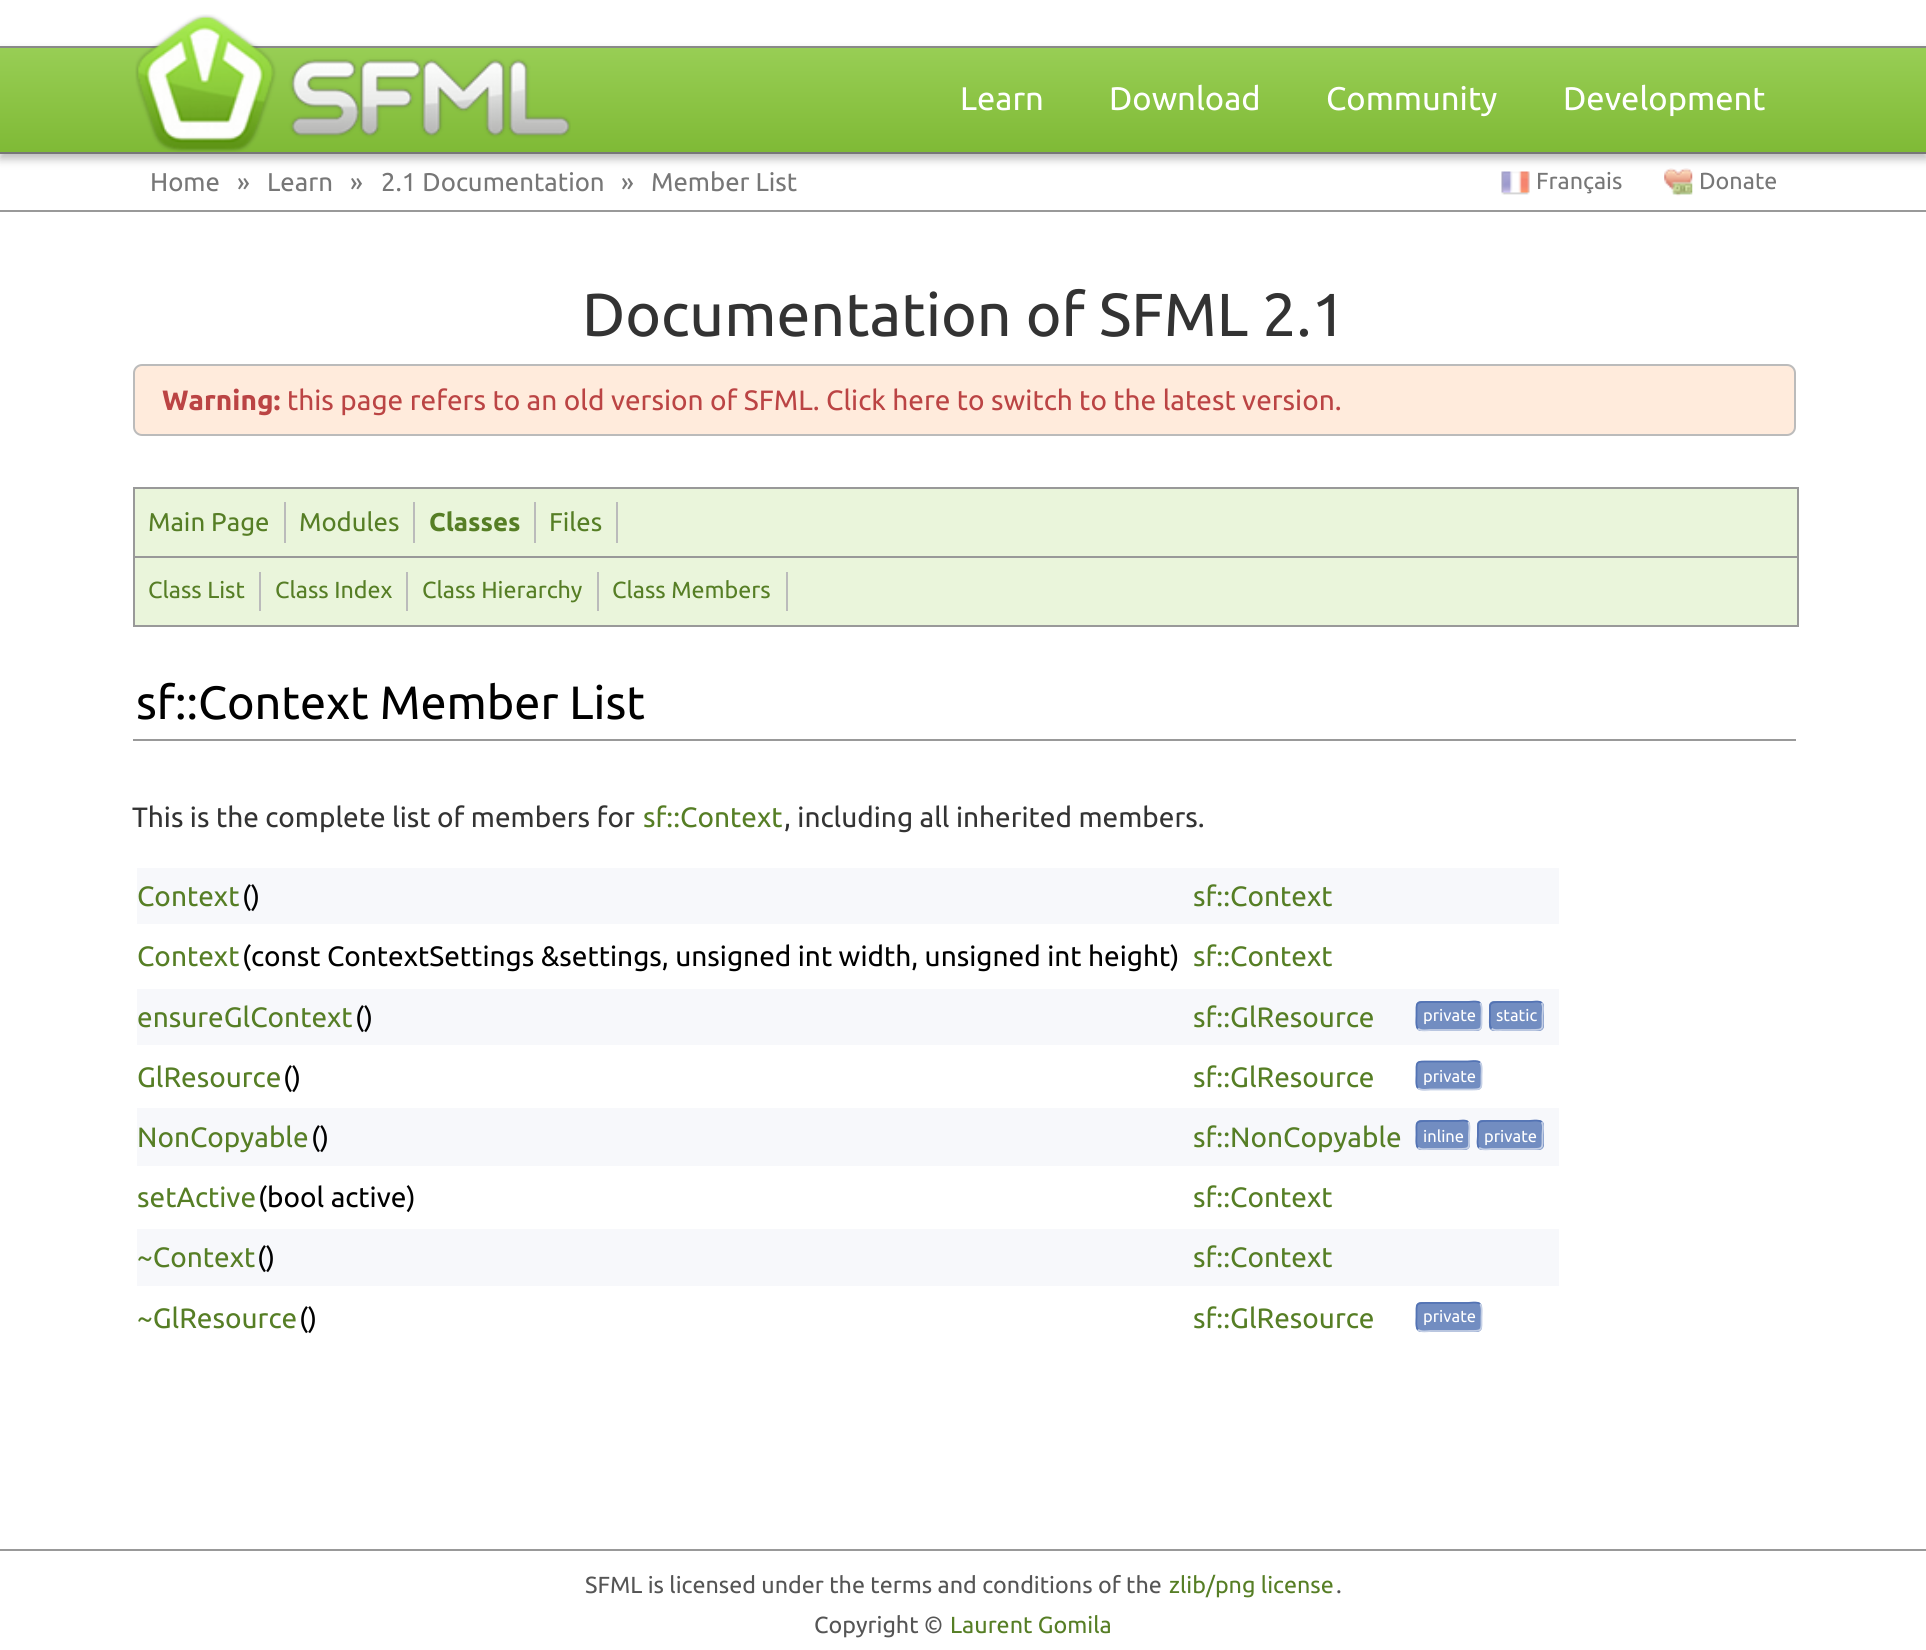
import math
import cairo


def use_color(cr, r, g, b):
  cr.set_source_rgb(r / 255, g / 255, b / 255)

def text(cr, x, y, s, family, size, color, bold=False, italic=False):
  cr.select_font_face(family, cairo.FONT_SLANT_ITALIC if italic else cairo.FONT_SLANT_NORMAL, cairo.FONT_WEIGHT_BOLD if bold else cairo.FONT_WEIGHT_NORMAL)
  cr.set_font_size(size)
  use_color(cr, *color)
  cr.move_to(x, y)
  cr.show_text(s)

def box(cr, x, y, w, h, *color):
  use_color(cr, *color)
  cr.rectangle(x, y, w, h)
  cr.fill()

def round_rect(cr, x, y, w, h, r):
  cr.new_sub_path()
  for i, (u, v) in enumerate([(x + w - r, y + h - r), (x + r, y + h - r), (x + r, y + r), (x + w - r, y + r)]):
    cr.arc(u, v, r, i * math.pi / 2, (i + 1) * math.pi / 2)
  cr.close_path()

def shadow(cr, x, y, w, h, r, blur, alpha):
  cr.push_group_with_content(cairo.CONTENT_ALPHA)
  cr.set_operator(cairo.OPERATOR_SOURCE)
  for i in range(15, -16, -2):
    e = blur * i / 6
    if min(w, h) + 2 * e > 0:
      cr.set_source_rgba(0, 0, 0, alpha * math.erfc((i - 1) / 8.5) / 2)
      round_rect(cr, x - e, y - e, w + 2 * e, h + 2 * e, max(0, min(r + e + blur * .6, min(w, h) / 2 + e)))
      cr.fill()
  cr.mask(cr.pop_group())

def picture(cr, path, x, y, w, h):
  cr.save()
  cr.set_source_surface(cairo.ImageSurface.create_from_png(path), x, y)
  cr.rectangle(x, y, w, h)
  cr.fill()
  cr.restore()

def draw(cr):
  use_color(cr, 255, 255, 255)
  cr.paint()
  use_color(cr, 187, 187, 187)
  shadow(cr, 0, 51, 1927, 108, 0, 4.5, 1)
  gradient = cairo.LinearGradient(963, 47, 963, 152)
  gradient.add_color_stop_rgba(0, 0.596, 0.808, 0.333, 1)
  gradient.add_color_stop_rgba(0.5, 0.549, 0.769, 0.271, 1)
  gradient.add_color_stop_rgba(1, 0.498, 0.729, 0.212, 1)
  cr.set_source(gradient)
  cr.rectangle(0, 48, 1926, 104)
  cr.fill()
  box(cr, 0, 46, 1926, 2, 136, 136, 136)
  box(cr, 0, 152, 1926, 2, 119, 119, 119)
  picture(cr, "img_01.png", 135, 14, 436, 138)
  box(cr, 0, 210, 1926, 2, 153, 153, 153)
  picture(cr, "img_02.png", 1501, 171, 29, 24)
  picture(cr, "img_03.png", 1664, 168, 29, 28)
  use_color(cr, 255, 235, 220)
  round_rect(cr, 134, 365, 1661, 70, 8)
  cr.fill_preserve()
  use_color(cr, 187, 187, 187)
  cr.stroke()
  use_color(cr, 234, 245, 219)
  cr.rectangle(134, 488, 1664, 69)
  cr.fill_preserve()
  use_color(cr, 153, 153, 153)
  cr.stroke()
  box(cr, 284, 502, 2, 41, 187, 187, 187)
  box(cr, 413, 502, 2, 41, 187, 187, 187)
  box(cr, 534, 502, 2, 41, 187, 187, 187)
  box(cr, 616, 502, 2, 41, 187, 187, 187)
  box(cr, 135, 558, 1662, 67, 234, 245, 219)
  box(cr, 1797, 558, 2, 69, 153, 153, 153)
  box(cr, 133, 625, 1666, 2, 153, 153, 153)
  box(cr, 133, 558, 2, 69, 153, 153, 153)
  box(cr, 259, 572, 2, 39, 187, 187, 187)
  box(cr, 406, 572, 2, 39, 187, 187, 187)
  box(cr, 597, 572, 2, 39, 187, 187, 187)
  box(cr, 786, 572, 2, 39, 187, 187, 187)
  box(cr, 133, 739, 1663, 2, 153, 153, 153)
  box(cr, 137, 868, 1422, 56, 247, 248, 251)
  box(cr, 137, 989, 1422, 56, 247, 248, 251)
  use_color(cr, 114, 141, 193)
  round_rect(cr, 1416, 1001, 66, 30, 5)
  cr.fill()
  cr.new_path()
  cr.move_to(1480, 1003)
  cr.curve_to(1482.5, 1005.5, 1481.5, 1013, 1481.5, 1016)
  cr.curve_to(1481.5, 1030.5, 1483, 1030, 1467.5, 1030)
  cr.line_to(1430.5, 1030)
  cr.curve_to(1428.5, 1030, 1420.5, 1031.5, 1418, 1028.5)
  use_color(cr, 196, 207, 229)
  cr.set_line_width(1.8)
  cr.stroke()
  cr.new_path()
  cr.move_to(1418, 1028.5)
  cr.curve_to(1415.5, 1026, 1416.5, 1019, 1416.5, 1016)
  cr.curve_to(1416.5, 1001, 1415, 1002, 1430.5, 1002)
  cr.line_to(1467.5, 1002)
  cr.curve_to(1469.5, 1002, 1477.5, 1000.5, 1480, 1003)
  use_color(cr, 83, 115, 180)
  cr.stroke()
  use_color(cr, 114, 141, 193)
  round_rect(cr, 1489, 1001, 55, 30, 5)
  cr.fill()
  cr.new_path()
  cr.move_to(1541.5, 1003)
  cr.curve_to(1544, 1005.5, 1542.5, 1013, 1542.5, 1016)
  cr.curve_to(1542.5, 1029.5, 1544.5, 1030, 1531, 1030)
  cr.line_to(1502, 1030)
  cr.curve_to(1499.5, 1030, 1494, 1031, 1491.5, 1028.5)
  use_color(cr, 196, 207, 229)
  cr.stroke()
  cr.new_path()
  cr.move_to(1491.5, 1028.5)
  cr.curve_to(1489, 1026, 1490, 1019, 1490, 1016)
  cr.curve_to(1490, 1002.5, 1488, 1002, 1502, 1002)
  cr.line_to(1531, 1002)
  cr.curve_to(1533, 1002, 1539, 1000.5, 1541.5, 1003)
  use_color(cr, 83, 115, 180)
  cr.stroke()
  use_color(cr, 114, 141, 193)
  round_rect(cr, 1416, 1061, 66, 29, 5)
  cr.fill()
  cr.new_path()
  cr.move_to(1480, 1062.5)
  cr.curve_to(1482.5, 1065, 1481.5, 1072.5, 1481.5, 1075.5)
  cr.curve_to(1481.5, 1090, 1483, 1089.5, 1467.5, 1089.5)
  cr.line_to(1430.5, 1089.5)
  cr.curve_to(1428.5, 1089.5, 1420.5, 1091, 1418, 1088)
  use_color(cr, 196, 207, 229)
  cr.stroke()
  cr.new_path()
  cr.move_to(1418, 1088)
  cr.curve_to(1415.5, 1085.5, 1416.5, 1078.5, 1416.5, 1075.5)
  cr.curve_to(1416.5, 1060.5, 1415, 1061.5, 1430.5, 1061.5)
  cr.line_to(1467.5, 1061.5)
  cr.curve_to(1469.5, 1061.5, 1477.5, 1060, 1480, 1062.5)
  use_color(cr, 83, 115, 180)
  cr.stroke()
  box(cr, 137, 1108, 1422, 58, 247, 248, 251)
  use_color(cr, 114, 141, 193)
  round_rect(cr, 1416, 1120, 54, 30, 5)
  cr.fill()
  cr.new_path()
  cr.move_to(1468, 1122)
  cr.curve_to(1470.5, 1124.5, 1469, 1132, 1469, 1135)
  cr.curve_to(1469, 1148.5, 1471, 1149, 1457.5, 1149)
  cr.line_to(1428.5, 1149)
  cr.curve_to(1426, 1149, 1420.5, 1150, 1418, 1147.5)
  use_color(cr, 196, 207, 229)
  cr.stroke()
  cr.new_path()
  cr.move_to(1418, 1147.5)
  cr.curve_to(1415.5, 1145, 1416.5, 1138, 1416.5, 1135)
  cr.curve_to(1416.5, 1121.5, 1414.5, 1121, 1428.5, 1121)
  cr.line_to(1457.5, 1121)
  cr.curve_to(1459.5, 1121, 1465.5, 1119.5, 1468, 1122)
  use_color(cr, 83, 115, 180)
  cr.stroke()
  use_color(cr, 114, 141, 193)
  round_rect(cr, 1477, 1120, 67, 30, 5)
  cr.fill()
  cr.new_path()
  cr.move_to(1541.5, 1122)
  cr.curve_to(1544, 1124.5, 1542.5, 1132, 1542.5, 1135)
  cr.curve_to(1542.5, 1149.5, 1544, 1149, 1529, 1149)
  cr.line_to(1491.5, 1149)
  cr.curve_to(1490, 1149, 1482, 1150.5, 1479, 1147.5)
  use_color(cr, 196, 207, 229)
  cr.stroke()
  cr.new_path()
  cr.move_to(1479, 1147.5)
  cr.curve_to(1476.5, 1145, 1478, 1138, 1478, 1135)
  cr.curve_to(1478, 1120, 1476.5, 1121, 1491.5, 1121)
  cr.line_to(1529, 1121)
  cr.curve_to(1530.5, 1121, 1538.5, 1119.5, 1541.5, 1122)
  use_color(cr, 83, 115, 180)
  cr.stroke()
  box(cr, 137, 1229, 1422, 57, 247, 248, 251)
  use_color(cr, 114, 141, 193)
  round_rect(cr, 1416, 1302, 66, 30, 5)
  cr.fill()
  cr.new_path()
  cr.move_to(1480, 1304)
  cr.curve_to(1482.5, 1306.5, 1481.5, 1314, 1481.5, 1317)
  cr.curve_to(1481.5, 1331.5, 1483, 1331, 1467.5, 1331)
  cr.line_to(1430.5, 1331)
  cr.curve_to(1428.5, 1331, 1420.5, 1332.5, 1418, 1329.5)
  use_color(cr, 196, 207, 229)
  cr.stroke()
  cr.new_path()
  cr.move_to(1418, 1329.5)
  cr.curve_to(1415.5, 1327, 1416.5, 1320, 1416.5, 1317)
  cr.curve_to(1416.5, 1302, 1415, 1303, 1430.5, 1303)
  cr.line_to(1467.5, 1303)
  cr.curve_to(1469.5, 1303, 1477.5, 1301.5, 1480, 1304)
  use_color(cr, 83, 115, 180)
  cr.stroke()
  box(cr, 0, 1549, 1926, 2, 153, 153, 153)
  text(cr, 960, 110, "Learn", "Ubuntu", 32.75, (255, 255, 255))
  text(cr, 1109, 110, "Download", "Ubuntu", 32.75, (255, 255, 255))
  text(cr, 1326, 110, "Community", "Ubuntu", 32.75, (255, 255, 255))
  text(cr, 1563, 110, "Development", "Ubuntu", 32.75, (255, 255, 255))
  text(cr, 150, 191, "Home", "Ubuntu", 25.75, (119, 119, 119))
  text(cr, 237, 191, "»", "Ubuntu", 25.75, (119, 119, 119))
  text(cr, 267, 191, "Learn", "Ubuntu", 25.75, (119, 119, 119))
  text(cr, 350, 191, "»", "Ubuntu", 25.75, (119, 119, 119))
  text(cr, 381, 191, "2.1 Documentation", "Ubuntu", 25.75, (119, 119, 119))
  text(cr, 621, 191, "»", "Ubuntu", 25.75, (119, 119, 119))
  text(cr, 651, 191, "Member List", "Ubuntu", 25.75, (119, 119, 119))
  text(cr, 1536, 189, "Français", "Ubuntu", 23.3, (119, 119, 119))
  text(cr, 1699, 189, "Donate", "Ubuntu", 23.3, (119, 119, 119))
  text(cr, 582, 336, "Documentation of SFML 2.1", "Ubuntu", 60.7, (51, 51, 51))
  text(cr, 162, 410, "Warning:", "Ubuntu", 28, (187, 68, 68), bold=True)
  text(cr, 287, 410, "this page refers to an old version of SFML. Click here to switch to the latest version.", "Ubuntu", 28, (187, 68, 68))
  text(cr, 148, 531, "Main Page", "Ubuntu", 25.75, (86, 126, 37))
  text(cr, 299, 531, "Modules", "Ubuntu", 25.75, (86, 126, 37))
  text(cr, 429, 531, "Classes", "Ubuntu", 25.75, (86, 126, 37), bold=True)
  text(cr, 549, 531, "Files", "Ubuntu", 25.75, (86, 126, 37))
  text(cr, 148, 598, "Class List", "Ubuntu", 23.3, (86, 126, 37))
  text(cr, 275, 598, "Class Index", "Ubuntu", 23.3, (86, 126, 37))
  text(cr, 422, 598, "Class Hierarchy", "Ubuntu", 23.3, (86, 126, 37))
  text(cr, 612, 598, "Class Members", "Ubuntu", 23.3, (86, 126, 37))
  text(cr, 136, 719, "sf::Context Member List", "Ubuntu", 46.75, (0, 0, 0))
  text(cr, 132, 827, "This is the complete list of members for", "Ubuntu", 28, (51, 51, 51))
  text(cr, 643, 827, "sf::Context", "Ubuntu", 28, (86, 126, 37))
  text(cr, 784, 827, ", including all inherited members.", "Ubuntu", 28, (51, 51, 51))
  text(cr, 137, 906, "Context", "Ubuntu", 28, (86, 126, 37))
  text(cr, 242, 906, "()", "Ubuntu", 28, (0, 0, 0))
  text(cr, 1193, 906, "sf::Context", "Ubuntu", 28, (86, 126, 37))
  text(cr, 137, 966, "Context", "Ubuntu", 28, (86, 126, 37))
  text(cr, 242, 966, "(const ContextSettings &settings, unsigned int width, unsigned int height)", "Ubuntu", 28, (0, 0, 0))
  text(cr, 1193, 966, "sf::Context", "Ubuntu", 28, (86, 126, 37))
  text(cr, 137, 1027, "ensureGlContext", "Ubuntu", 28, (86, 126, 37))
  text(cr, 355, 1027, "()", "Ubuntu", 28, (0, 0, 0))
  text(cr, 1193, 1027, "sf::GlResource", "Ubuntu", 28, (86, 126, 37))
  text(cr, 1423, 1021, "private", "Ubuntu", 16.5, (255, 255, 255))
  text(cr, 1496, 1021, "static", "Ubuntu", 16.5, (255, 255, 255))
  text(cr, 137, 1087, "GlResource", "Ubuntu", 28, (86, 126, 37))
  text(cr, 283, 1087, "()", "Ubuntu", 28, (0, 0, 0))
  text(cr, 1193, 1087, "sf::GlResource", "Ubuntu", 28, (86, 126, 37))
  text(cr, 1423, 1082, "private", "Ubuntu", 16.5, (255, 255, 255))
  text(cr, 137, 1147, "NonCopyable", "Ubuntu", 28, (86, 126, 37))
  text(cr, 311, 1147, "()", "Ubuntu", 28, (0, 0, 0))
  text(cr, 1193, 1147, "sf::NonCopyable", "Ubuntu", 28, (86, 126, 37))
  text(cr, 1423, 1142, "inline", "Ubuntu", 16.5, (255, 255, 255))
  text(cr, 1484, 1142, "private", "Ubuntu", 16.5, (255, 255, 255))
  text(cr, 137, 1207, "setActive", "Ubuntu", 28, (86, 126, 37))
  text(cr, 258, 1207, "(bool active)", "Ubuntu", 28, (0, 0, 0))
  text(cr, 1193, 1207, "sf::Context", "Ubuntu", 28, (86, 126, 37))
  text(cr, 137, 1267, "~Context", "Ubuntu", 28, (86, 126, 37))
  text(cr, 257, 1267, "()", "Ubuntu", 28, (0, 0, 0))
  text(cr, 1193, 1267, "sf::Context", "Ubuntu", 28, (86, 126, 37))
  text(cr, 137, 1328, "~GlResource", "Ubuntu", 28, (86, 126, 37))
  text(cr, 299, 1328, "()", "Ubuntu", 28, (0, 0, 0))
  text(cr, 1193, 1328, "sf::GlResource", "Ubuntu", 28, (86, 126, 37))
  text(cr, 1423, 1322, "private", "Ubuntu", 16.5, (255, 255, 255))
  text(cr, 585, 1593, "SFML is licensed under the terms and conditions of the", "Ubuntu", 23.3, (85, 85, 85))
  text(cr, 1169, 1593, "zlib/png license", "Ubuntu", 23.3, (86, 126, 37))
  text(cr, 1336, 1593, ".", "Ubuntu", 23.3, (85, 85, 85))
  text(cr, 814, 1633, "Copyright ©", "Ubuntu", 23.3, (85, 85, 85))
  text(cr, 950, 1633, "Laurent Gomila", "Ubuntu", 23.3, (86, 126, 37))


surface = cairo.ImageSurface(cairo.FORMAT_RGB24, 1926, 1650)
cr = cairo.Context(surface)
options = cairo.FontOptions()
options.set_hint_metrics(cairo.HINT_METRICS_OFF)
options.set_hint_style(cairo.HINT_STYLE_NONE)
cr.set_font_options(options)
cr.set_miter_limit(4)
draw(cr)
surface.write_to_png("out.png")
